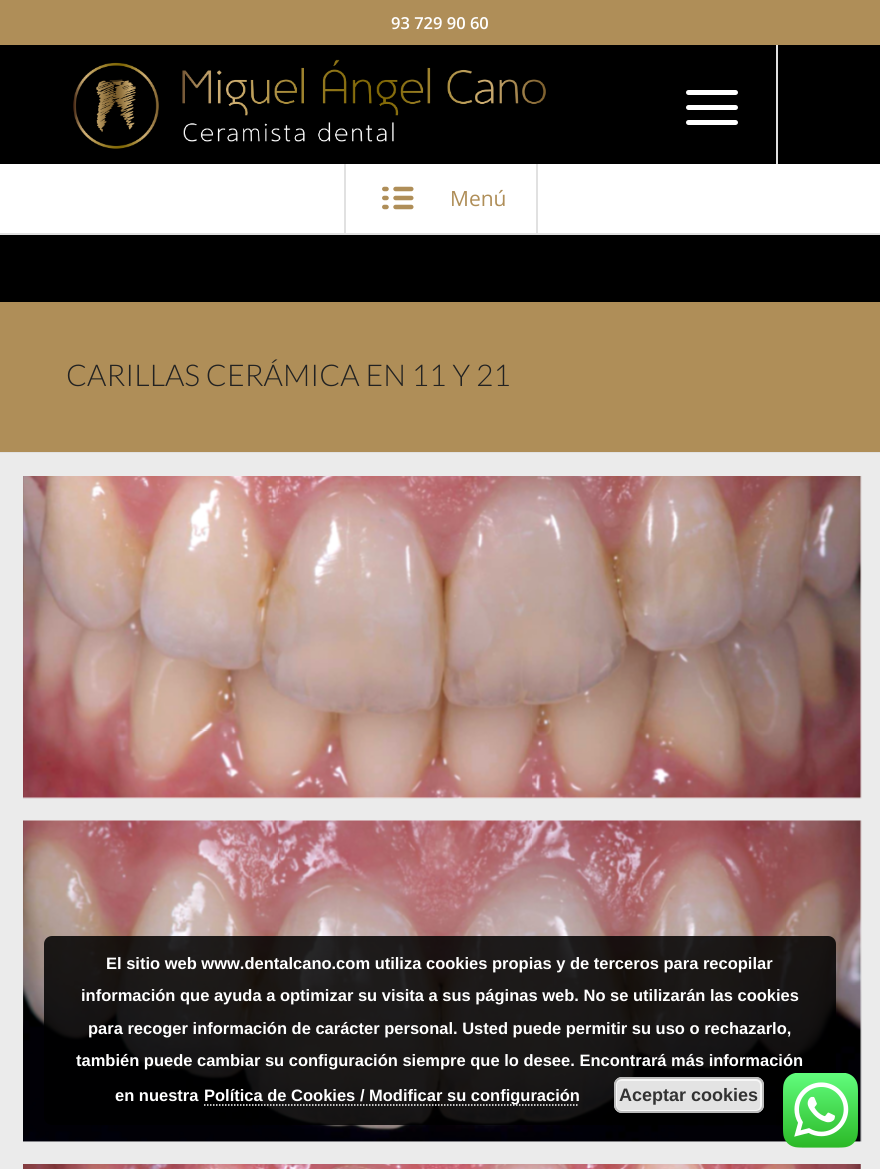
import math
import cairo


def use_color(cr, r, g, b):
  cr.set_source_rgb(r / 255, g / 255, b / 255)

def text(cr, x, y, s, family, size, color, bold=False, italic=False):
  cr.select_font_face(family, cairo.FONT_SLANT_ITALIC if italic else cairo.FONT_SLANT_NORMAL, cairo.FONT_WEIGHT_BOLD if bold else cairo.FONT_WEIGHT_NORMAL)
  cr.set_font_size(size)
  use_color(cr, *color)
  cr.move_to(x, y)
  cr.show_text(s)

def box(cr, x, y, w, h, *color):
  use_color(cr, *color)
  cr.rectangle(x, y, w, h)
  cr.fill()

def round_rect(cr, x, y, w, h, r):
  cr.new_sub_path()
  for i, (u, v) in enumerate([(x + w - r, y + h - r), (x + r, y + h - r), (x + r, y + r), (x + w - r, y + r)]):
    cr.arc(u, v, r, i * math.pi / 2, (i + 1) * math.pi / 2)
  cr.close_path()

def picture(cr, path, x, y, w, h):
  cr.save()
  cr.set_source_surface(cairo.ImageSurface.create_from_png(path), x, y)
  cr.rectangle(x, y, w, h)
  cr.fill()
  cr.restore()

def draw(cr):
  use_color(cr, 0, 0, 0)
  cr.paint()
  box(cr, 776, 44, 2, 120, 225, 225, 225)
  box(cr, 0, 0, 880, 45, 175, 142, 88)
  picture(cr, "img_01.png", 73, 59, 473, 90)
  use_color(cr, 255, 255, 255)
  round_rect(cr, 686, 105, 52, 5, 2.5)
  cr.fill()
  round_rect(cr, 686, 90, 52, 5, 2.5)
  cr.fill()
  round_rect(cr, 686, 120, 52, 5, 2.5)
  cr.fill()
  box(cr, 0, 164, 880, 69, 255, 255, 255)
  box(cr, 0, 233, 880, 2, 225, 225, 225)
  box(cr, 536, 164, 2, 69, 225, 225, 225)
  box(cr, 344, 164, 2, 69, 225, 225, 225)
  picture(cr, "img_02.png", 382, 186, 32, 24)
  box(cr, 0, 302, 880, 150, 175, 142, 88)
  box(cr, 0, 452, 880, 1, 225, 225, 225)
  box(cr, 0, 453, 880, 716, 235, 235, 235)
  box(cr, 23, 476, 838, 322, 255, 255, 255)
  picture(cr, "img_03.png", 23, 476, 839, 323)
  box(cr, 23, 821, 838, 321, 255, 255, 255)
  picture(cr, "img_04.png", 23, 820, 839, 322)
  picture(cr, "img_05.png", 23, 1164, 838, 5)
  cr.set_source_rgba(0, 0, 0, 0.85)
  round_rect(cr, 44, 936, 792, 189, 8)
  cr.fill()
  cr.new_path()
  cr.move_to(204, 1105)
  cr.line_to(579, 1105)
  use_color(cr, 255, 255, 255)
  cr.set_line_width(1.5)
  cr.set_dash([1.5, 1.5])
  cr.stroke()
  use_color(cr, 227, 227, 227)
  round_rect(cr, 614, 1077, 150, 36, 8)
  cr.fill()
  round_rect(cr, 616, 1080, 145, 31, 5)
  use_color(cr, 246, 246, 246)
  cr.set_line_width(2)
  cr.set_dash([])
  cr.stroke()
  round_rect(cr, 615, 1078, 148, 34, 7)
  use_color(cr, 187, 187, 187)
  cr.stroke()
  picture(cr, "img_06.png", 783, 1073, 75, 75)
  text(cr, 391, 29, "93 729 90 60", "Open Sans SemiBold", 16.5, (255, 255, 255))
  text(cr, 450, 206, "Menú", "Open Sans", 21, (175, 142, 88))
  text(cr, 66, 386, "CARILLAS CERÁMICA EN 11 Y 21", "Lato Light", 30, (34, 34, 34))
  text(cr, 106, 969, "El sitio web www.dentalcano.com utiliza cookies propias y de terceros para recopilar", "Liberation Sans", 16.5, (255, 255, 255), bold=True)
  text(cr, 81, 1001, "información que ayuda a optimizar su visita a sus páginas web. No se utilizarán las cookies", "Liberation Sans", 16.5, (255, 255, 255), bold=True)
  text(cr, 88, 1034, "para recoger información de carácter personal. Usted puede permitir su uso o rechazarlo,", "Liberation Sans", 16.5, (255, 255, 255), bold=True)
  text(cr, 76, 1066, "también puede cambiar su configuración siempre que lo desee. Encontrará más información", "Liberation Sans", 16.5, (255, 255, 255), bold=True)
  text(cr, 115, 1101, "en nuestra", "Liberation Sans", 16.5, (255, 255, 255), bold=True)
  text(cr, 204, 1101, "Política de Cookies / Modificar su configuración", "Liberation Sans", 16.5, (255, 255, 255), bold=True)
  text(cr, 619, 1101, "Aceptar cookies", "Liberation Sans", 18, (51, 51, 51), bold=True)


surface = cairo.ImageSurface(cairo.FORMAT_RGB24, 880, 1169)
cr = cairo.Context(surface)
options = cairo.FontOptions()
options.set_hint_metrics(cairo.HINT_METRICS_OFF)
options.set_hint_style(cairo.HINT_STYLE_NONE)
cr.set_font_options(options)
cr.set_miter_limit(4)
draw(cr)
surface.write_to_png("out.png")
